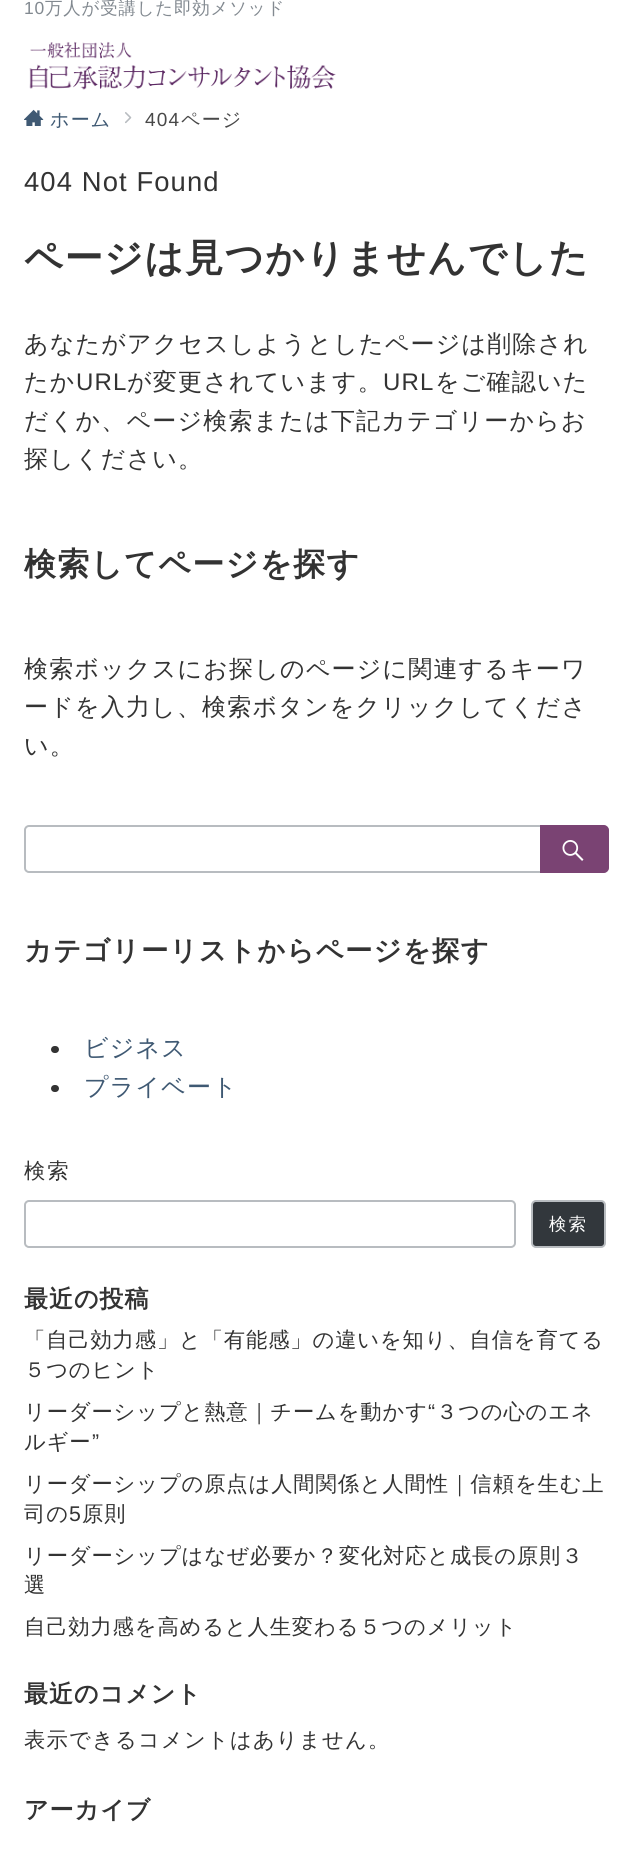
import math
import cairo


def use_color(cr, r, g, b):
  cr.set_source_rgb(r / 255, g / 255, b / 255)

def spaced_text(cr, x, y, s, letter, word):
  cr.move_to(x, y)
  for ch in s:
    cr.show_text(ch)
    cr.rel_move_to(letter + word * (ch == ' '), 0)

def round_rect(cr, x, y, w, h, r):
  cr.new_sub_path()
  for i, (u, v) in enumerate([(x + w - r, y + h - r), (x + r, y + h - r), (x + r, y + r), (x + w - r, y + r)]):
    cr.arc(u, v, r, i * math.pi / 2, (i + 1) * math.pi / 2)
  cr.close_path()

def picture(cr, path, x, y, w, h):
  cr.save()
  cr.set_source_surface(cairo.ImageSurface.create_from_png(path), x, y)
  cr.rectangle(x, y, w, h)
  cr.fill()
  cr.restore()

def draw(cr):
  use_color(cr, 255, 255, 255)
  cr.paint()
  picture(cr, "img_01.png", 29, 41, 307, 49)
  picture(cr, "img_02.png", 24, 109, 20, 17)
  picture(cr, "img_03.png", 125, 112, 7, 12)
  round_rect(cr, 25, 826, 580, 46, 4)
  use_color(cr, 184, 188, 192)
  cr.stroke()
  use_color(cr, 122, 67, 115)
  cr.new_path()
  cr.move_to(541, 826)
  cr.line_to(604, 826)
  cr.curve_to(606, 826, 608, 828, 608, 830)
  cr.line_to(608, 868)
  cr.curve_to(608, 870, 606, 872, 604, 872)
  cr.line_to(541, 872)
  cr.close_path()
  cr.fill_preserve()
  cr.stroke()
  picture(cr, "img_04.png", 562, 840, 22, 21)
  use_color(cr, 51, 51, 51)
  round_rect(cr, 51, 1046, 8, 7, 3.5)
  cr.fill()
  round_rect(cr, 51, 1085, 8, 7, 3.5)
  cr.fill()
  round_rect(cr, 25, 1201, 490, 46, 4)
  use_color(cr, 184, 188, 192)
  cr.stroke()
  use_color(cr, 50, 55, 60)
  round_rect(cr, 532, 1201, 73, 46, 4)
  cr.fill_preserve()
  use_color(cr, 184, 188, 192)
  cr.stroke()
  cr.select_font_face("Liberation Sans")
  cr.set_font_size(17.5)
  use_color(cr, 130, 137, 144)
  spaced_text(cr, 24, 14, "10", 0.75, 0)
  cr.select_font_face("WenQuanYi Zen Hei Medium")
  spaced_text(cr, 45, 14, "万人が受講した即効メソッド", 0.75, 0)
  cr.set_font_size(19)
  use_color(cr, 63, 89, 115)
  spaced_text(cr, 50, 126, "ホーム", 1.2, 0)
  cr.select_font_face("Liberation Sans")
  use_color(cr, 72, 72, 72)
  spaced_text(cr, 145, 126, "404", 1.2, 0)
  cr.select_font_face("WenQuanYi Zen Hei Medium")
  spaced_text(cr, 181, 126, "ページ", 1.2, 0)
  cr.select_font_face("Liberation Sans")
  cr.set_font_size(27.4)
  use_color(cr, 51, 51, 51)
  spaced_text(cr, 24, 191, "404 Not Found", 1.1, 0)
  cr.select_font_face("WenQuanYi Zen Hei", cairo.FONT_SLANT_NORMAL, cairo.FONT_WEIGHT_BOLD)
  cr.set_font_size(38.4)
  spaced_text(cr, 24, 271, "ページは見つかりませんでした", 1.2, 0)
  cr.select_font_face("WenQuanYi Zen Hei Medium")
  cr.set_font_size(24)
  spaced_text(cr, 24, 352, "あなたがアクセスしようとしたページは削除され", 1.2, 0)
  spaced_text(cr, 24, 390, "たか", 1.2, 0)
  cr.select_font_face("Liberation Sans")
  spaced_text(cr, 76, 390, "URL", 1.2, 0)
  cr.select_font_face("WenQuanYi Zen Hei Medium")
  spaced_text(cr, 127, 390, "が変更されています。", 1.2, 0)
  cr.select_font_face("Liberation Sans")
  spaced_text(cr, 383, 390, "URL", 1.2, 0)
  cr.select_font_face("WenQuanYi Zen Hei Medium")
  spaced_text(cr, 435, 390, "をご確認いた", 1.2, 0)
  spaced_text(cr, 24, 429, "だくか、ページ検索または下記カテゴリーからお", 1.2, 0)
  spaced_text(cr, 24, 467, "探しください。", 1.2, 0)
  cr.select_font_face("WenQuanYi Zen Hei", cairo.FONT_SLANT_NORMAL, cairo.FONT_WEIGHT_BOLD)
  cr.set_font_size(32)
  spaced_text(cr, 24, 575, "検索してページを探す", 1.2, 0)
  cr.select_font_face("WenQuanYi Zen Hei Medium")
  cr.set_font_size(24)
  spaced_text(cr, 24, 677, "検索ボックスにお探しのページに関連するキーワ", 1.2, 0)
  spaced_text(cr, 24, 715, "ードを入力し、検索ボタンをクリックしてくださ", 1.2, 0)
  spaced_text(cr, 24, 754, "い。", 1.2, 0)
  cr.select_font_face("WenQuanYi Zen Hei", cairo.FONT_SLANT_NORMAL, cairo.FONT_WEIGHT_BOLD)
  cr.set_font_size(27.4)
  spaced_text(cr, 24, 960, "カテゴリーリストからページを探す", 1.2, 0)
  cr.select_font_face("WenQuanYi Zen Hei Medium")
  cr.set_font_size(24)
  use_color(cr, 63, 89, 115)
  spaced_text(cr, 84, 1056, "ビジネス", 1.2, 0)
  spaced_text(cr, 84, 1095, "プライベート", 1.2, 0)
  cr.set_font_size(21.3)
  use_color(cr, 51, 51, 51)
  spaced_text(cr, 24, 1178, "検索", 2, 0)
  cr.set_font_size(17.5)
  use_color(cr, 255, 255, 255)
  spaced_text(cr, 549, 1230, "検索", 2, 0)
  cr.select_font_face("WenQuanYi Zen Hei", cairo.FONT_SLANT_NORMAL, cairo.FONT_WEIGHT_BOLD)
  cr.set_font_size(24)
  use_color(cr, 51, 51, 51)
  spaced_text(cr, 24, 1307, "最近の投稿", 1, 0)
  cr.select_font_face("WenQuanYi Zen Hei Medium")
  cr.set_font_size(21.3)
  spaced_text(cr, 24, 1347, "「自己効力感」と「有能感」の違いを知り、自信を育てる", 0.85, 0)
  spaced_text(cr, 24, 1377, "５つのヒント", 0.85, 0)
  spaced_text(cr, 24, 1419, "リーダーシップと熱意｜チームを動かす", 0.85, 0)
  cr.select_font_face("Liberation Sans")
  spaced_text(cr, 428, 1419, "“", 0.85, 0)
  cr.select_font_face("WenQuanYi Zen Hei Medium")
  spaced_text(cr, 436, 1419, "３つの心のエネ", 0.85, 0)
  spaced_text(cr, 24, 1449, "ルギー", 0.85, 0)
  cr.select_font_face("Liberation Sans")
  spaced_text(cr, 92, 1449, "”", 0.85, 0)
  cr.select_font_face("WenQuanYi Zen Hei Medium")
  spaced_text(cr, 24, 1491, "リーダーシップの原点は人間関係と人間性｜信頼を生む上", 0.85, 0)
  spaced_text(cr, 24, 1521, "司の", 0.85, 0)
  cr.select_font_face("Liberation Sans")
  spaced_text(cr, 69, 1521, "5", 0.85, 0)
  cr.select_font_face("WenQuanYi Zen Hei Medium")
  spaced_text(cr, 82, 1521, "原則", 0.85, 0)
  spaced_text(cr, 24, 1563, "リーダーシップはなぜ必要か？変化対応と成長の原則３", 0.85, 0)
  spaced_text(cr, 24, 1592, "選", 0.85, 0)
  spaced_text(cr, 24, 1634, "自己効力感を高めると人生変わる５つのメリット", 0.85, 0)
  cr.select_font_face("WenQuanYi Zen Hei", cairo.FONT_SLANT_NORMAL, cairo.FONT_WEIGHT_BOLD)
  cr.set_font_size(24)
  spaced_text(cr, 24, 1702, "最近のコメント", 1, 0)
  cr.select_font_face("WenQuanYi Zen Hei Medium")
  cr.set_font_size(21.3)
  spaced_text(cr, 24, 1747, "表示できるコメントはありません。", 1.2, 0)
  cr.select_font_face("WenQuanYi Zen Hei", cairo.FONT_SLANT_NORMAL, cairo.FONT_WEIGHT_BOLD)
  cr.set_font_size(24)
  spaced_text(cr, 24, 1818, "アーカイブ", 1, 0)


surface = cairo.ImageSurface(cairo.FORMAT_RGB24, 629, 1850)
cr = cairo.Context(surface)
options = cairo.FontOptions()
options.set_hint_metrics(cairo.HINT_METRICS_OFF)
options.set_hint_style(cairo.HINT_STYLE_NONE)
cr.set_font_options(options)
cr.set_miter_limit(4)
draw(cr)
surface.write_to_png("out.png")
